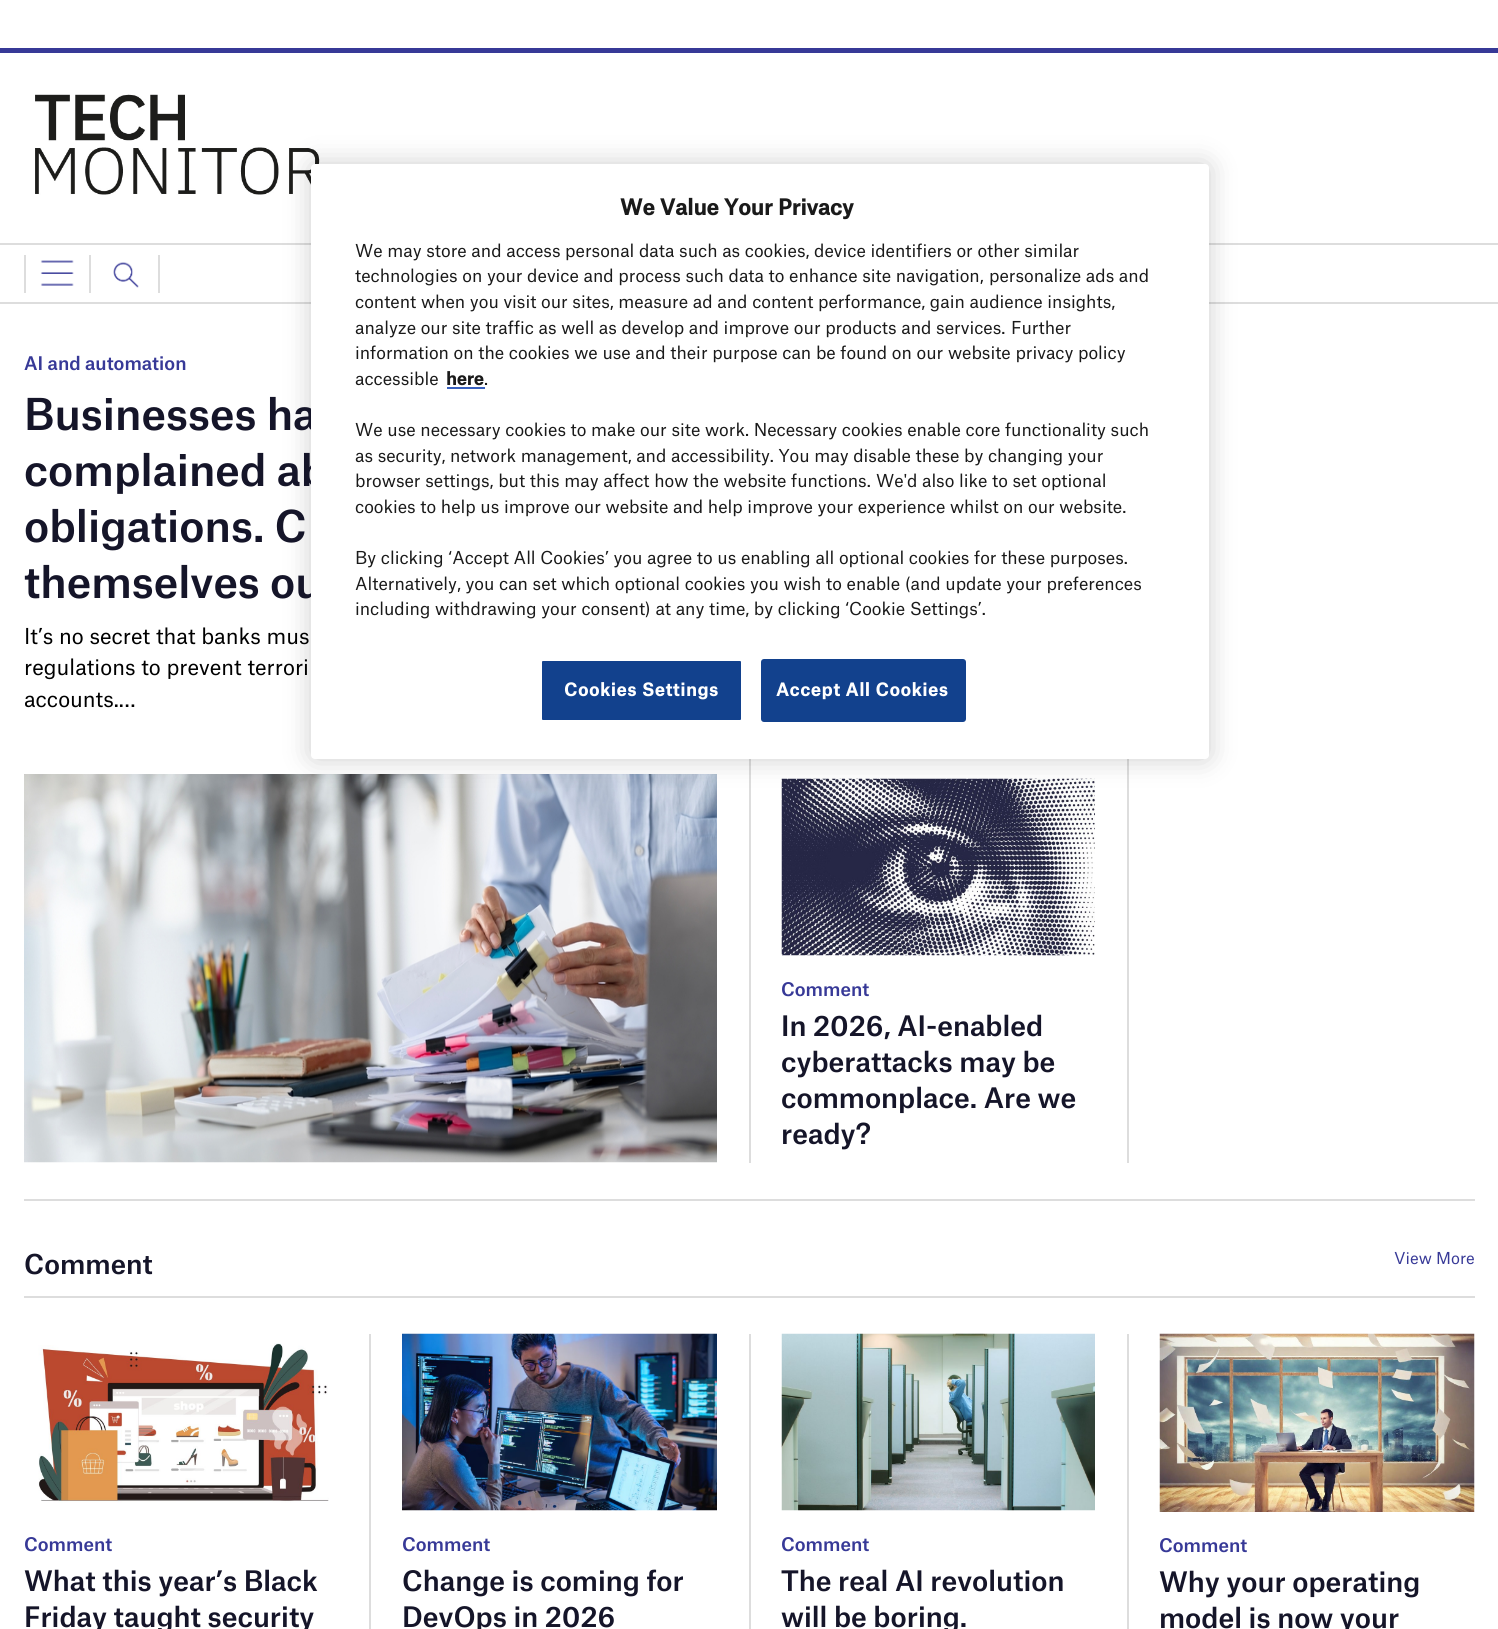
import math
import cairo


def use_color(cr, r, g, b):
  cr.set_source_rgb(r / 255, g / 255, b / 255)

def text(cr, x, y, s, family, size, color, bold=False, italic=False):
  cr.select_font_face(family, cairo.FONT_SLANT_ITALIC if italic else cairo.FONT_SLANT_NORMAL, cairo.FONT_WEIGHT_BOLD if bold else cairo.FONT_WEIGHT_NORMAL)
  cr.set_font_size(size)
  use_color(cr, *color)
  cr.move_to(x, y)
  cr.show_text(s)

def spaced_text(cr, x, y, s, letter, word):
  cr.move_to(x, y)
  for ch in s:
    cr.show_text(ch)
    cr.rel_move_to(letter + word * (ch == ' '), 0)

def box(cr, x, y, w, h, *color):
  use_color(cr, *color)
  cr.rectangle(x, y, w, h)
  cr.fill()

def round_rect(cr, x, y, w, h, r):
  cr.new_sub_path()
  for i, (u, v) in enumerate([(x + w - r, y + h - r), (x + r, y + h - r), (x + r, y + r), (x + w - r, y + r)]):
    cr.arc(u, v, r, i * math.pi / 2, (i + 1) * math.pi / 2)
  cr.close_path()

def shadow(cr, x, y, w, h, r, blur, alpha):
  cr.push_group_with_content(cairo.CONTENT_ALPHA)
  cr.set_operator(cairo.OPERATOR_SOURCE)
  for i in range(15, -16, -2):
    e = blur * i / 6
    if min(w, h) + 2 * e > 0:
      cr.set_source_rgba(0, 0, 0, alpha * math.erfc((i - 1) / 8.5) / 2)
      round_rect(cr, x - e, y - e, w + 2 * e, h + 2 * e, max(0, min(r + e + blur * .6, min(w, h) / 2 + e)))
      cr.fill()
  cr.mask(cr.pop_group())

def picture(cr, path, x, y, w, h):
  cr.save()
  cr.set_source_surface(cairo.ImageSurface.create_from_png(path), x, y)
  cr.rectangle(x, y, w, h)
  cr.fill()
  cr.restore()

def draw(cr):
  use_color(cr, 255, 255, 255)
  cr.paint()
  box(cr, 0, 48, 1498, 5, 55, 57, 151)
  picture(cr, "img_01.png", 35, 94, 286, 101)
  box(cr, 0, 243, 1498, 2, 221, 221, 221)
  box(cr, 0, 302, 1498, 2, 221, 221, 221)
  picture(cr, "img_02.png", 40, 260, 34, 26)
  box(cr, 89, 255, 2, 38, 221, 221, 221)
  box(cr, 24, 255, 2, 38, 221, 221, 221)
  picture(cr, "img_03.png", 113, 262, 26, 26)
  box(cr, 158, 255, 2, 38, 221, 221, 221)
  box(cr, 749, 759, 2, 404, 221, 221, 221)
  picture(cr, "img_04.png", 24, 774, 693, 389)
  box(cr, 1127, 759, 2, 404, 221, 221, 221)
  picture(cr, "img_05.png", 781, 778, 314, 178)
  use_color(cr, 0, 0, 0)
  shadow(cr, 311, 164, 898, 595, 4, 13.5, 0.2)
  box(cr, 24, 1199, 1451, 2, 221, 221, 221)
  box(cr, 24, 1296, 1451, 2, 221, 221, 221)
  box(cr, 369, 1334, 2, 295, 221, 221, 221)
  picture(cr, "img_06.png", 38, 1343, 291, 160)
  box(cr, 749, 1334, 2, 295, 221, 221, 221)
  picture(cr, "img_07.png", 402, 1333, 315, 178)
  box(cr, 1127, 1334, 2, 295, 221, 221, 221)
  picture(cr, "img_08.png", 781, 1333, 314, 178)
  picture(cr, "img_09.png", 1159, 1333, 316, 179)
  text(cr, 24, 370, "AI and automation", "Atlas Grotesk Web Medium", 18, (55, 57, 151))
  text(cr, 24, 430, "Businesses ha", "Atlas Grotesk Web Medium", 42, (21, 21, 41))
  text(cr, 24, 486, "complained ab", "Atlas Grotesk Web Medium", 42, (21, 21, 41))
  text(cr, 24, 542, "obligations. C", "Atlas Grotesk Web Medium", 42, (21, 21, 41))
  text(cr, 24, 598, "themselves ou", "Atlas Grotesk Web Medium", 42, (21, 21, 41))
  use_color(cr, 255, 255, 255)
  round_rect(cr, 311, 164, 898, 595, 4)
  cr.fill()
  use_color(cr, 18, 65, 141)
  round_rect(cr, 541, 660, 201, 61, 2)
  cr.fill_preserve()
  use_color(cr, 255, 255, 255)
  cr.stroke()
  cr.select_font_face("Atlas Grotesk Web", cairo.FONT_SLANT_NORMAL, cairo.FONT_WEIGHT_BOLD)
  cr.set_font_size(17.05)
  spaced_text(cr, 564, 696, "Cookies Settings", 0.8, 0)
  use_color(cr, 18, 65, 141)
  round_rect(cr, 762, 660, 203, 61, 2)
  cr.fill_preserve()
  cr.stroke()
  use_color(cr, 255, 255, 255)
  spaced_text(cr, 776, 696, "Accept All Cookies", 0.8, 0)
  text(cr, 355, 615, "including withdrawing your consent) at any time, by clicking ‘Cookie Settings’.", "Atlas Grotesk Web", 17.05, (26, 26, 26))
  text(cr, 355, 590, "Alternatively, you can set which optional cookies you wish to enable (and update your preferences", "Atlas Grotesk Web", 17.05, (26, 26, 26))
  text(cr, 355, 564, "By clicking ‘Accept All Cookies’ you agree to us enabling all optional cookies for these purposes.", "Atlas Grotesk Web", 17.05, (26, 26, 26))
  text(cr, 355, 513, "cookies to help us improve our website and help improve your experience whilst on our website.", "Atlas Grotesk Web", 17.05, (26, 26, 26))
  text(cr, 876, 487, "We'd also like to set optional", "Atlas Grotesk Web", 17.05, (26, 26, 26))
  text(cr, 355, 487, "browser settings, but this may affect how the website functions.", "Atlas Grotesk Web", 17.05, (26, 26, 26))
  text(cr, 355, 462, "as security, network management, and accessibility. You may disable these by changing your", "Atlas Grotesk Web", 17.05, (26, 26, 26))
  text(cr, 355, 436, "We use necessary cookies to make our site work. Necessary cookies enable core functionality such", "Atlas Grotesk Web", 17.05, (26, 26, 26))
  text(cr, 484, 385, ".", "Atlas Grotesk Web", 17.05, (26, 26, 26))
  text(cr, 446, 385, "here", "Atlas Grotesk Web", 17.05, (26, 26, 26), bold=True)
  box(cr, 447, 387, 38, 2, 56, 96, 190)
  text(cr, 355, 385, "accessible", "Atlas Grotesk Web", 17.05, (26, 26, 26))
  text(cr, 355, 359, "information on the cookies we use and their purpose can be found on our website privacy policy", "Atlas Grotesk Web", 17.05, (26, 26, 26))
  text(cr, 1011, 334, "Further", "Atlas Grotesk Web", 17.05, (26, 26, 26))
  text(cr, 355, 334, "analyze our site traffic as well as develop and improve our products and services.", "Atlas Grotesk Web", 17.05, (26, 26, 26))
  text(cr, 355, 308, "content when you visit our sites, measure ad and content performance, gain audience insights,", "Atlas Grotesk Web", 17.05, (26, 26, 26))
  text(cr, 989, 282, "personalize ads and", "Atlas Grotesk Web", 17.05, (26, 26, 26))
  text(cr, 355, 282, "technologies on your device and process such data to enhance site navigation,", "Atlas Grotesk Web", 17.05, (26, 26, 26))
  text(cr, 355, 257, "We may store and access personal data such as cookies, device identifiers or other similar", "Atlas Grotesk Web", 17.05, (26, 26, 26))
  text(cr, 620, 215, "We Value Your Privacy", "Atlas Grotesk Web", 21, (26, 26, 26), bold=True)
  text(cr, 24, 644, "It’s no secret that banks mus", "Atlas Grotesk Web", 21, (0, 0, 0))
  text(cr, 24, 675, "regulations to prevent terrori", "Atlas Grotesk Web", 21, (0, 0, 0))
  text(cr, 24, 707, "accounts.…", "Atlas Grotesk Web", 21, (0, 0, 0))
  text(cr, 781, 996, "Comment", "Atlas Grotesk Web Medium", 18, (55, 57, 151))
  text(cr, 781, 1036, "In 2026, AI-enabled", "Atlas Grotesk Web Medium", 27, (21, 21, 41))
  text(cr, 781, 1072, "cyberattacks may be", "Atlas Grotesk Web Medium", 27, (21, 21, 41))
  text(cr, 781, 1108, "commonplace. Are we", "Atlas Grotesk Web Medium", 27, (21, 21, 41))
  text(cr, 781, 1144, "ready?", "Atlas Grotesk Web Medium", 27, (21, 21, 41))
  text(cr, 24, 1274, "Comment", "Atlas Grotesk Web Medium", 26.25, (21, 21, 41))
  text(cr, 1394, 1264, "View More", "Atlas Grotesk Web", 15.75, (55, 57, 151))
  text(cr, 24, 1551, "Comment", "Atlas Grotesk Web Medium", 18, (55, 57, 151))
  text(cr, 24, 1591, "What this year’s Black", "Atlas Grotesk Web Medium", 27, (21, 21, 41))
  text(cr, 24, 1627, "Friday taught security", "Atlas Grotesk Web Medium", 27, (21, 21, 41))
  text(cr, 402, 1551, "Comment", "Atlas Grotesk Web Medium", 18, (55, 57, 151))
  text(cr, 402, 1591, "Change is coming for", "Atlas Grotesk Web Medium", 27, (21, 21, 41))
  text(cr, 402, 1627, "DevOps in 2026", "Atlas Grotesk Web Medium", 27, (21, 21, 41))
  text(cr, 781, 1551, "Comment", "Atlas Grotesk Web Medium", 18, (55, 57, 151))
  text(cr, 781, 1591, "The real AI revolution", "Atlas Grotesk Web Medium", 27, (21, 21, 41))
  text(cr, 781, 1627, "will be boring.", "Atlas Grotesk Web Medium", 27, (21, 21, 41))
  text(cr, 1159, 1552, "Comment", "Atlas Grotesk Web Medium", 18, (55, 57, 151))
  text(cr, 1159, 1592, "Why your operating", "Atlas Grotesk Web Medium", 27, (21, 21, 41))
  text(cr, 1159, 1628, "model is now your", "Atlas Grotesk Web Medium", 27, (21, 21, 41))


surface = cairo.ImageSurface(cairo.FORMAT_RGB24, 1498, 1629)
cr = cairo.Context(surface)
options = cairo.FontOptions()
options.set_hint_metrics(cairo.HINT_METRICS_OFF)
options.set_hint_style(cairo.HINT_STYLE_NONE)
cr.set_font_options(options)
cr.set_miter_limit(4)
draw(cr)
surface.write_to_png("out.png")
